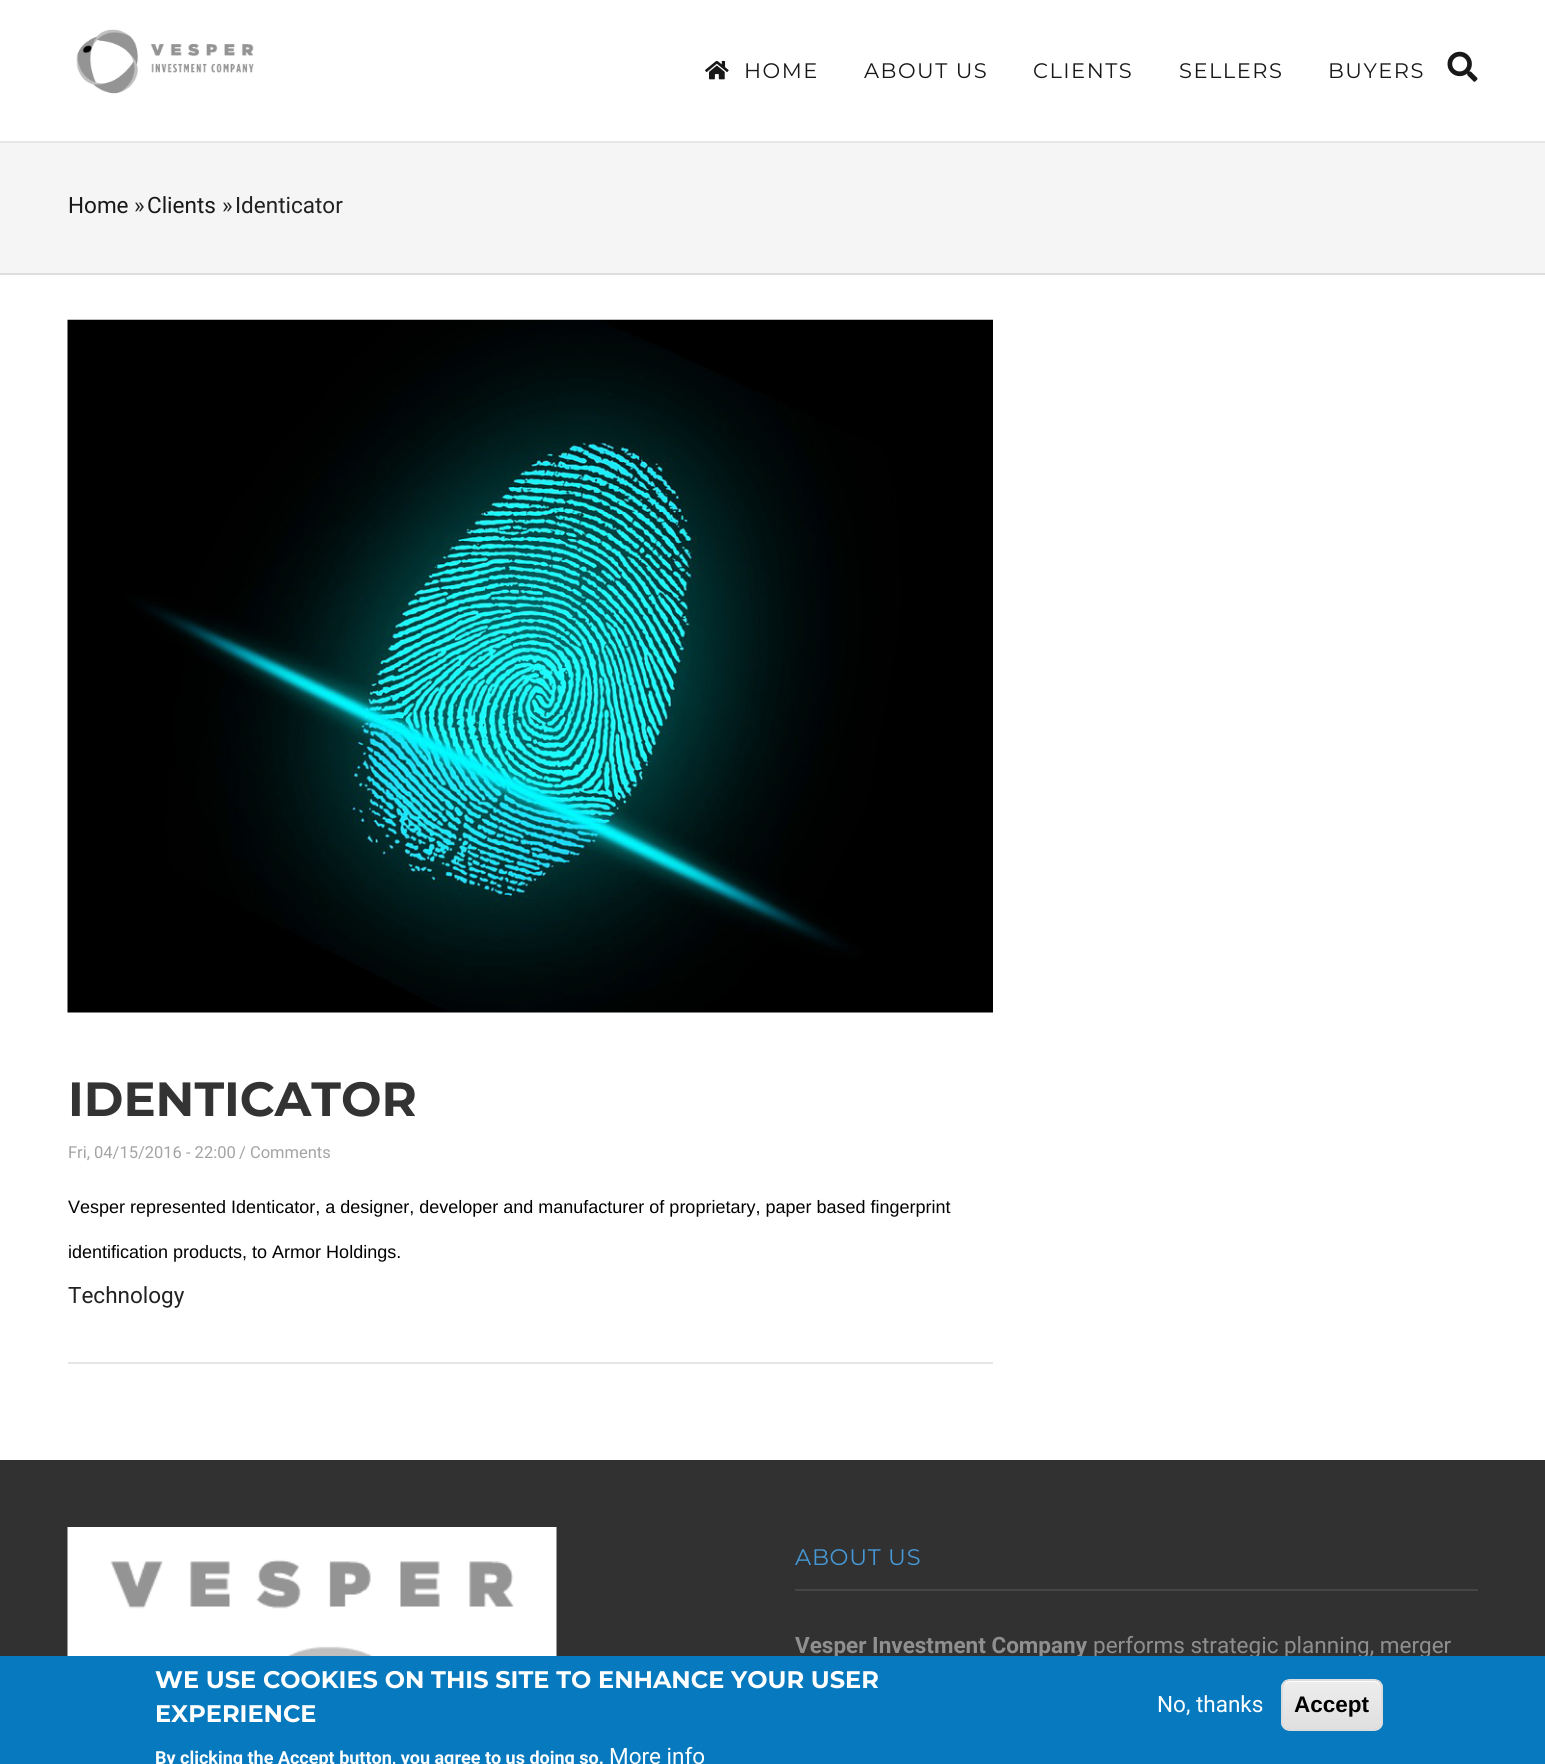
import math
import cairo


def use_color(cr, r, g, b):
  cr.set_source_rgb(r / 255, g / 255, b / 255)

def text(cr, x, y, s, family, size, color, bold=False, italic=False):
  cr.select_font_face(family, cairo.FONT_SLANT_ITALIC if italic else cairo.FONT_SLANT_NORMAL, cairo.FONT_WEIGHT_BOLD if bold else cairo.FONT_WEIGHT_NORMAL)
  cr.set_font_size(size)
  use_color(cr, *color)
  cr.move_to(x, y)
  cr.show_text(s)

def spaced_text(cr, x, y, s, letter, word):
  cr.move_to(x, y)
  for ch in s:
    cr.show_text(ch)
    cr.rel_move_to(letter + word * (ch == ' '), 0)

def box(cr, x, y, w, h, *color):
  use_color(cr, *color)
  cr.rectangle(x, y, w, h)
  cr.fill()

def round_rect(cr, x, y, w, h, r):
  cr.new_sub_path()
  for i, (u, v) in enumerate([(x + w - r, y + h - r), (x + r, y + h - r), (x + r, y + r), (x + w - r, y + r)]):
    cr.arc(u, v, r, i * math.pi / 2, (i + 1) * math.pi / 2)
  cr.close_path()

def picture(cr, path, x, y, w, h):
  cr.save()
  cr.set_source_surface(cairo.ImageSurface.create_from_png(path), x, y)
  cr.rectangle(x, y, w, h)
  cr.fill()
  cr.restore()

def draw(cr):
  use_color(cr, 255, 255, 255)
  cr.paint()
  box(cr, 0, 141, 1545, 2, 230, 230, 230)
  picture(cr, "img_01.png", 76, 29, 178, 65)
  picture(cr, "img_02.png", 705, 60, 24, 20)
  picture(cr, "img_03.png", 1447, 51, 31, 31)
  box(cr, 0, 143, 1545, 130, 245, 245, 245)
  box(cr, 0, 273, 1545, 2, 221, 221, 221)
  picture(cr, "img_04.png", 67, 319, 926, 694)
  box(cr, 68, 1362, 925, 2, 230, 230, 230)
  box(cr, 0, 1460, 1545, 196, 49, 49, 49)
  picture(cr, "img_05.png", 67, 1527, 490, 129)
  box(cr, 795, 1589, 683, 2, 70, 70, 70)
  cr.select_font_face("Montserrat")
  cr.set_font_size(21)
  use_color(cr, 24, 24, 24)
  spaced_text(cr, 744, 78, "HOME", 1.5, 0)
  spaced_text(cr, 864, 78, "ABOUT US", 1.5, 0)
  spaced_text(cr, 1033, 78, "CLIENTS", 1.5, 0)
  spaced_text(cr, 1179, 78, "SELLERS", 1.5, 0)
  spaced_text(cr, 1328, 78, "BUYERS", 1.5, 0)
  text(cr, 68, 213, "Home", "Roboto", 22.5, (24, 24, 24))
  text(cr, 134, 213, "»", "Roboto", 22.5, (34, 34, 34))
  text(cr, 147, 213, "Clients", "Roboto", 22.5, (24, 24, 24))
  text(cr, 222, 213, "»", "Roboto", 22.5, (34, 34, 34))
  text(cr, 235, 213, "Identicator", "Roboto", 22.5, (34, 34, 34))
  text(cr, 68, 1116, "IDENTICATOR", "Montserrat", 48, (51, 51, 51), bold=True)
  text(cr, 68, 1158, "Fri, 04/15/2016 - 22:00", "Roboto", 16.5, (164, 164, 164))
  text(cr, 239, 1158, "/ Comments", "Roboto", 16.5, (164, 164, 164))
  text(cr, 68, 1213, "Vesper represented Identicator, a designer, developer and manufacturer of proprietary, paper based fingerprint", "Liberation Sans", 18, (0, 0, 0))
  text(cr, 68, 1258, "identification products, to Armor Holdings.", "Liberation Sans", 18, (0, 0, 0))
  text(cr, 68, 1303, "Technology", "Roboto", 22.5, (34, 34, 34))
  cr.select_font_face("Montserrat")
  use_color(cr, 70, 152, 213)
  spaced_text(cr, 795, 1565, "ABOUT US", 0.75, 0)
  text(cr, 795, 1653, "Vesper Investment Company", "Roboto", 22.5, (143, 143, 143), bold=True)
  text(cr, 1093, 1653, "performs strategic planning, merger", "Roboto", 22.5, (143, 143, 143))
  box(cr, 0, 1656, 1545, 108, 7, 121, 191)
  text(cr, 155, 1688, "WE USE COOKIES ON THIS SITE TO ENHANCE YOUR USER", "Montserrat", 24, (255, 255, 255), bold=True)
  text(cr, 155, 1722, "EXPERIENCE", "Montserrat", 24, (255, 255, 255), bold=True)
  text(cr, 155, 1764, "By clicking the Accept button, you agree to us doing so.", "Roboto", 18, (255, 255, 255), bold=True)
  text(cr, 609, 1764, "More info", "Roboto", 22.5, (255, 255, 255))
  text(cr, 1157, 1712, "No, thanks", "Roboto", 22.5, (255, 255, 255))
  cr.save()
  round_rect(cr, 1281, 1679, 102, 52, 9)
  cr.clip()
  gradient = cairo.LinearGradient(1332, 1680, 1332, 1730)
  gradient.add_color_stop_rgba(0.05, 0.929, 0.929, 0.929, 1)
  gradient.add_color_stop_rgba(1, 0.875, 0.875, 0.875, 1)
  cr.set_source(gradient)
  cr.rectangle(1281, 1680, 102, 50)
  cr.fill()
  cr.restore()
  cr.new_path()
  cr.move_to(1290, 1682)
  cr.line_to(1374, 1682)
  cr.curve_to(1378, 1682, 1382, 1685, 1382, 1689)
  cr.line_to(1382, 1688)
  cr.curve_to(1382, 1684, 1378, 1680, 1374, 1680)
  cr.line_to(1291, 1680)
  cr.curve_to(1288, 1680, 1285, 1682, 1284, 1685)
  cr.curve_to(1285, 1683, 1288, 1682, 1290, 1682)
  cr.close_path()
  cr.fill()
  round_rect(cr, 1282, 1680, 100, 50, 8)
  use_color(cr, 220, 220, 220)
  cr.stroke()
  text(cr, 1294, 1712, "Accept", "Liberation Sans", 22.5, (0, 0, 0), bold=True)


surface = cairo.ImageSurface(cairo.FORMAT_RGB24, 1545, 1764)
cr = cairo.Context(surface)
options = cairo.FontOptions()
options.set_hint_metrics(cairo.HINT_METRICS_OFF)
options.set_hint_style(cairo.HINT_STYLE_NONE)
cr.set_font_options(options)
cr.set_miter_limit(4)
draw(cr)
surface.write_to_png("out.png")
